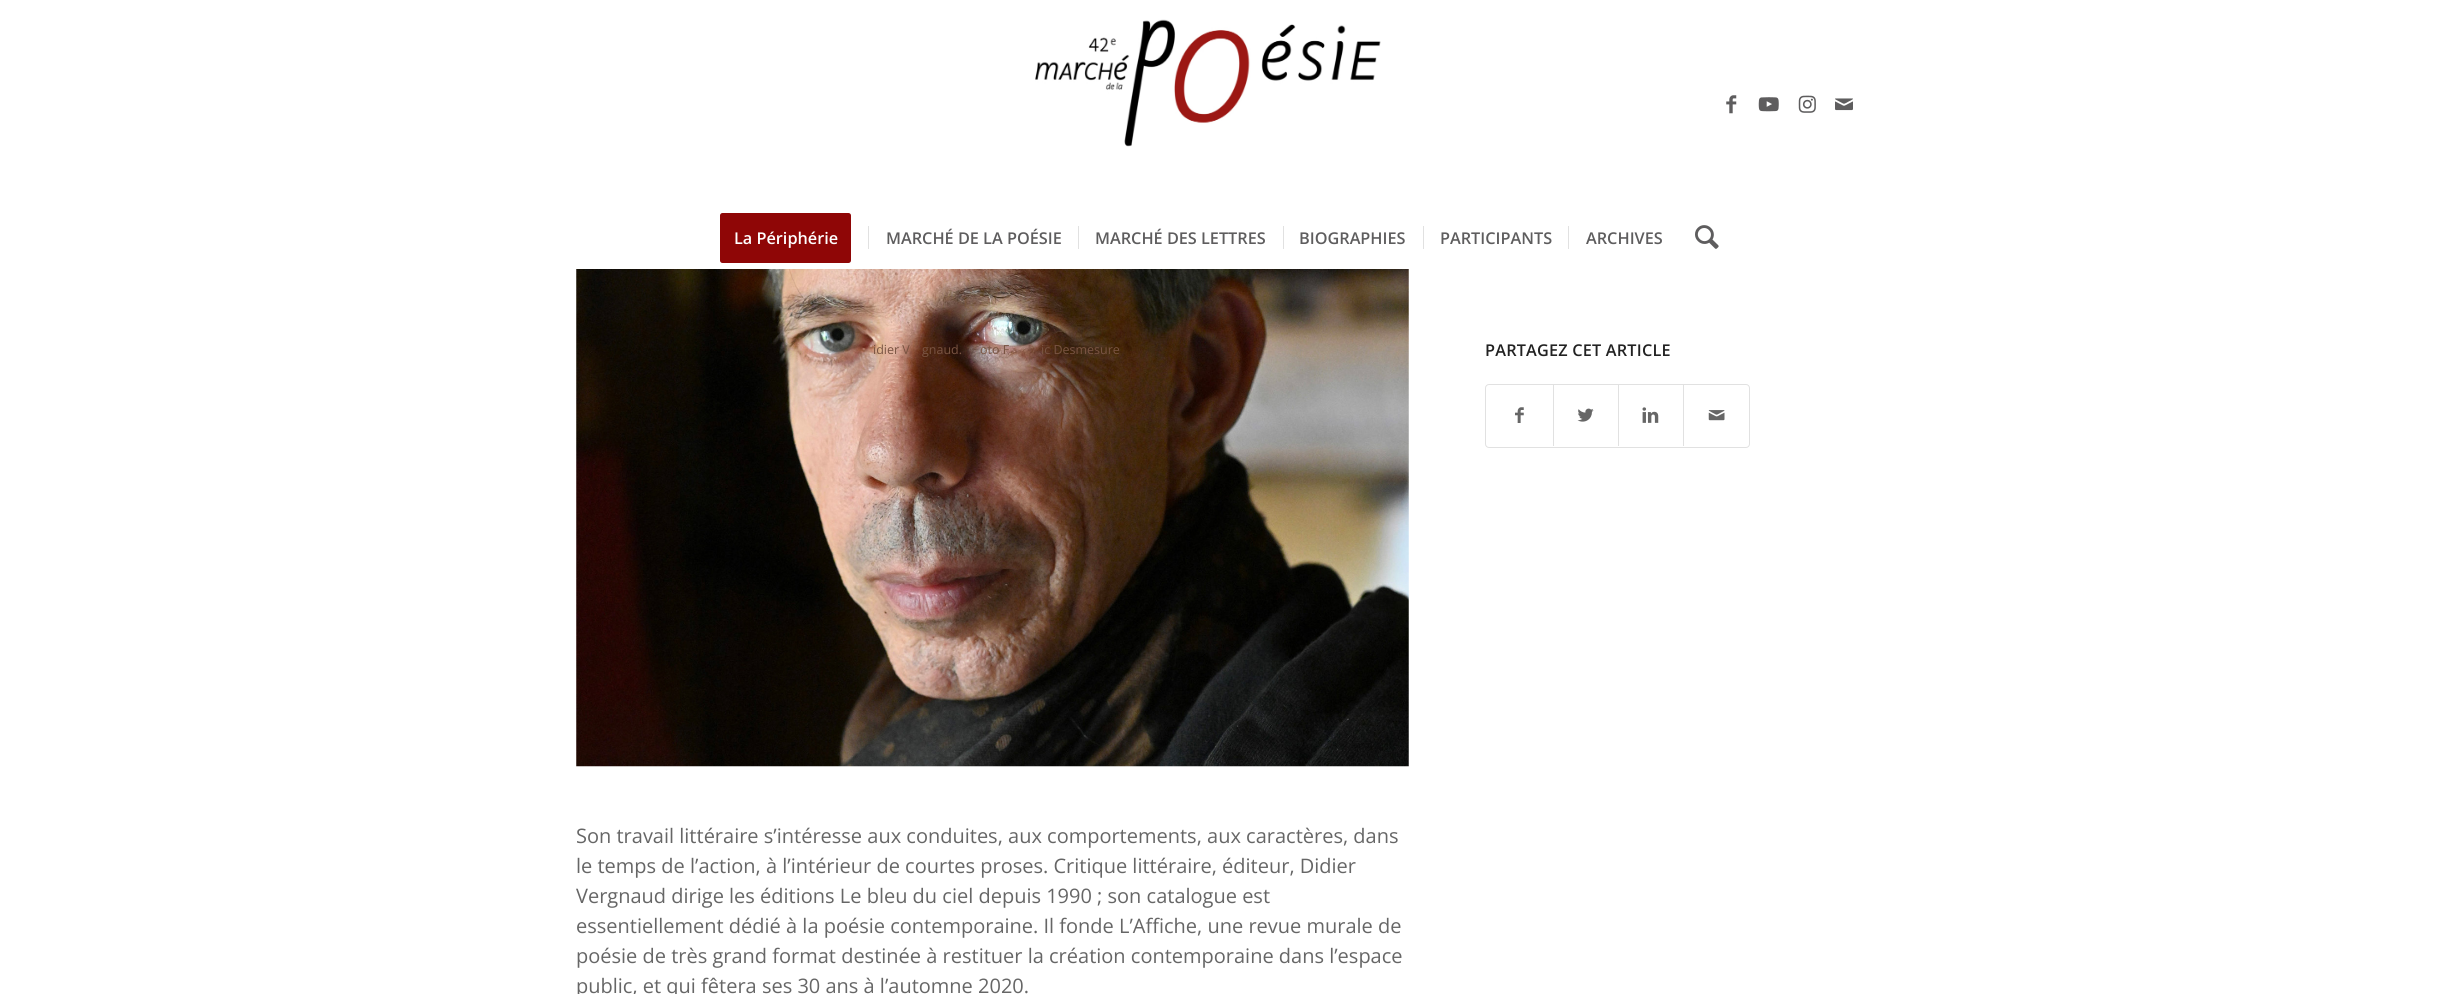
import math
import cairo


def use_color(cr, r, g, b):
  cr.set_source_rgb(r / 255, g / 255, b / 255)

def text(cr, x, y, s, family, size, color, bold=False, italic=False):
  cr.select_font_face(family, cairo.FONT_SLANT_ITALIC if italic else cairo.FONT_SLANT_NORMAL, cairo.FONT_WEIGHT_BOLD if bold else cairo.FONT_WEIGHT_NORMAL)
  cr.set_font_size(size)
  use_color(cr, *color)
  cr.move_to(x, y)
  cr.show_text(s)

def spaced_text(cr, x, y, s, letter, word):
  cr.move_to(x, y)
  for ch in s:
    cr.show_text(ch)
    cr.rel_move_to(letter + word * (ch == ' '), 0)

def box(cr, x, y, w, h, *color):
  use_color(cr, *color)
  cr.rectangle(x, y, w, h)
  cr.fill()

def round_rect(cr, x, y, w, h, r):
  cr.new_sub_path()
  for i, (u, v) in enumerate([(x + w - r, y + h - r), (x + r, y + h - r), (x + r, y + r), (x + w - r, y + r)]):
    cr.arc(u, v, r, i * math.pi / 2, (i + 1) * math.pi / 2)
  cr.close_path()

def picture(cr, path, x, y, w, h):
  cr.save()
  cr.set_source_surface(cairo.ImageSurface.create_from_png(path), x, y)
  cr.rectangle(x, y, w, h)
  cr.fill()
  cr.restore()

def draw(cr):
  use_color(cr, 255, 255, 255)
  cr.paint()
  picture(cr, "img_01.png", 1035, 19, 346, 128)
  picture(cr, "img_02.png", 1726, 95, 11, 19)
  picture(cr, "img_03.png", 1758, 97, 21, 15)
  picture(cr, "img_04.png", 1798, 95, 18, 18)
  picture(cr, "img_05.png", 1835, 98, 18, 13)
  use_color(cr, 143, 6, 6)
  round_rect(cr, 721.5, 214.5, 128, 47, 1)
  cr.fill_preserve()
  cr.set_line_width(3)
  cr.stroke()
  box(cr, 868, 226, 1, 23, 225, 225, 225)
  box(cr, 1078, 226, 1, 23, 225, 225, 225)
  box(cr, 1283, 226, 1, 23, 225, 225, 225)
  box(cr, 1423, 226, 1, 23, 225, 225, 225)
  box(cr, 1568, 226, 1, 23, 225, 225, 225)
  picture(cr, "img_06.png", 1695, 225, 24, 24)
  picture(cr, "img_07.png", 576, 269, 833, 498)
  round_rect(cr, 1485.5, 384.5, 264, 63, 3.5)
  cr.set_line_width(1)
  cr.stroke()
  picture(cr, "img_08.png", 1515, 407, 9, 16)
  box(cr, 1553, 385, 1, 61, 225, 225, 225)
  picture(cr, "img_09.png", 1577, 408, 17, 14)
  box(cr, 1618, 385, 1, 61, 225, 225, 225)
  picture(cr, "img_10.png", 1642, 407, 17, 16)
  box(cr, 1683, 385, 1, 61, 225, 225, 225)
  picture(cr, "img_11.png", 1708, 410, 17, 11)
  text(cr, 734, 244, "La Périphérie", "Open Sans SemiBold", 16.25, (255, 255, 255))
  text(cr, 886, 244, "MARCHÉ DE LA POÉSIE", "Open Sans SemiBold", 16.25, (94, 93, 94))
  text(cr, 1095, 244, "MARCHÉ DES LETTRES", "Open Sans SemiBold", 16.25, (94, 93, 94))
  text(cr, 1299, 244, "BIOGRAPHIES", "Open Sans SemiBold", 16.25, (94, 93, 94))
  text(cr, 1440, 244, "PARTICIPANTS", "Open Sans SemiBold", 16.25, (94, 93, 94))
  text(cr, 1586, 244, "ARCHIVES", "Open Sans SemiBold", 16.25, (94, 93, 94))
  text(cr, 873, 354, "idier V", "Open Sans", 12.5, (121, 84, 66))
  text(cr, 922, 354, "gnaud.", "Open Sans", 12.5, (121, 84, 66))
  text(cr, 980, 354, "oto F", "Open Sans", 12.5, (121, 84, 66))
  text(cr, 1041, 354, "ic Desmesure", "Open Sans", 12.5, (121, 84, 66))
  text(cr, 576, 843, "Son travail littéraire s’intéresse aux conduites, aux comportements, aux caractères, dans", "Open Sans", 20, (102, 102, 102))
  text(cr, 576, 873, "le temps de l’action, à l’intérieur de courtes proses. Critique littéraire, éditeur, Didier", "Open Sans", 20, (102, 102, 102))
  text(cr, 576, 903, "Vergnaud dirige les éditions Le bleu du ciel depuis 1990 ; son catalogue est", "Open Sans", 20, (102, 102, 102))
  text(cr, 576, 933, "essentiellement dédié à la poésie contemporaine. Il fonde L’Affiche, une revue murale de", "Open Sans", 20, (102, 102, 102))
  text(cr, 576, 963, "poésie de très grand format destinée à restituer la création contemporaine dans l’espace", "Open Sans", 20, (102, 102, 102))
  text(cr, 576, 993, "public, et qui fêtera ses 30 ans à l’automne 2020.", "Open Sans", 20, (102, 102, 102))
  cr.select_font_face("Open Sans SemiBold")
  cr.set_font_size(16.25)
  use_color(cr, 34, 34, 34)
  spaced_text(cr, 1485, 356, "PARTAGEZ CET ARTICLE", 0.2, 0)


surface = cairo.ImageSurface(cairo.FORMAT_RGB24, 2438, 994)
cr = cairo.Context(surface)
options = cairo.FontOptions()
options.set_hint_metrics(cairo.HINT_METRICS_OFF)
options.set_hint_style(cairo.HINT_STYLE_NONE)
cr.set_font_options(options)
cr.set_miter_limit(4)
draw(cr)
surface.write_to_png("out.png")
